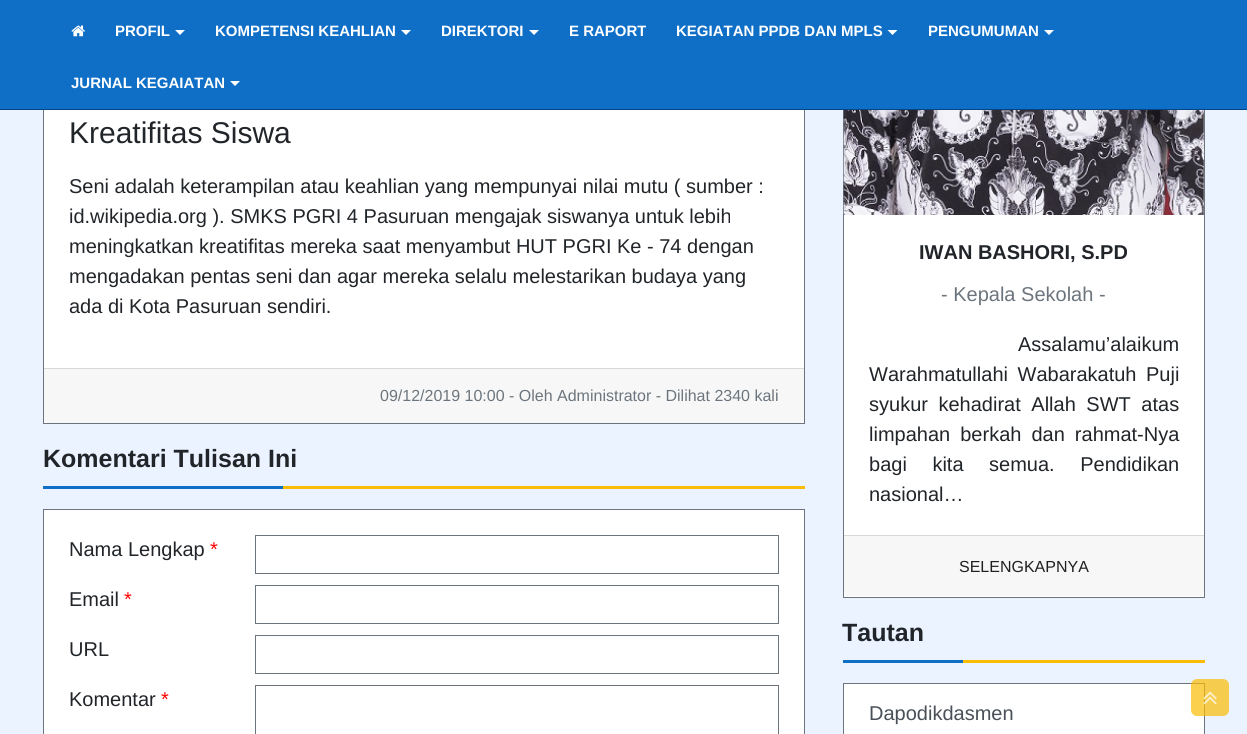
import math
import cairo


def use_color(cr, r, g, b):
  cr.set_source_rgb(r / 255, g / 255, b / 255)

def text(cr, x, y, s, family, size, color, bold=False, italic=False):
  cr.select_font_face(family, cairo.FONT_SLANT_ITALIC if italic else cairo.FONT_SLANT_NORMAL, cairo.FONT_WEIGHT_BOLD if bold else cairo.FONT_WEIGHT_NORMAL)
  cr.set_font_size(size)
  use_color(cr, *color)
  cr.move_to(x, y)
  cr.show_text(s)

def spaced_text(cr, x, y, s, letter, word):
  cr.move_to(x, y)
  for ch in s:
    cr.show_text(ch)
    cr.rel_move_to(letter + word * (ch == ' '), 0)

def box(cr, x, y, w, h, *color):
  use_color(cr, *color)
  cr.rectangle(x, y, w, h)
  cr.fill()

def round_rect(cr, x, y, w, h, r):
  cr.new_sub_path()
  for i, (u, v) in enumerate([(x + w - r, y + h - r), (x + r, y + h - r), (x + r, y + r), (x + w - r, y + r)]):
    cr.arc(u, v, r, i * math.pi / 2, (i + 1) * math.pi / 2)
  cr.close_path()

def picture(cr, path, x, y, w, h):
  cr.save()
  cr.set_source_surface(cairo.ImageSurface.create_from_png(path), x, y)
  cr.rectangle(x, y, w, h)
  cr.fill()
  cr.restore()

def draw(cr):
  use_color(cr, 234, 243, 255)
  cr.paint()
  box(cr, 44, 110, 760, 313, 255, 255, 255)
  cr.rectangle(43.5, -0.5, 761, 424)
  use_color(cr, 108, 117, 125)
  cr.set_line_width(1)
  cr.stroke()
  box(cr, 844, 110, 360, 487, 255, 255, 255)
  cr.rectangle(843.5, -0.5, 361, 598)
  use_color(cr, 108, 117, 125)
  cr.stroke()
  box(cr, 0, 0, 1247, 109, 15, 111, 199)
  box(cr, 0, 109, 1247, 1, 1, 69, 133)
  picture(cr, "img_01.png", 71, 25, 14, 12)
  use_color(cr, 255, 255, 255)
  cr.new_path()
  cr.move_to(175, 30)
  cr.line_to(185, 30)
  cr.line_to(180, 35)
  cr.close_path()
  cr.fill()
  cr.new_path()
  cr.move_to(401, 30)
  cr.line_to(411, 30)
  cr.line_to(406, 35)
  cr.close_path()
  cr.fill()
  cr.new_path()
  cr.move_to(529, 30)
  cr.line_to(539, 30)
  cr.line_to(534, 35)
  cr.close_path()
  cr.fill()
  cr.new_path()
  cr.move_to(887.5, 30)
  cr.line_to(897.5, 30)
  cr.line_to(892.5, 35)
  cr.close_path()
  cr.fill()
  cr.new_path()
  cr.move_to(1044, 30)
  cr.line_to(1054, 30)
  cr.line_to(1049, 35)
  cr.close_path()
  cr.fill()
  cr.new_path()
  cr.move_to(230, 81)
  cr.line_to(240, 81)
  cr.line_to(235, 86)
  cr.close_path()
  cr.fill()
  use_color(cr, 247, 247, 247)
  cr.new_path()
  cr.move_to(44, 368)
  cr.line_to(804, 368)
  cr.line_to(804, 419)
  cr.curve_to(804, 421, 802, 423, 800, 423)
  cr.line_to(48, 423)
  cr.curve_to(46, 423, 44, 421, 44, 419)
  cr.close_path()
  cr.fill()
  box(cr, 44, 368, 760, 1, 216, 216, 216)
  box(cr, 283, 486, 522, 3, 251, 188, 5)
  box(cr, 43, 486, 240, 3, 15, 111, 199)
  use_color(cr, 255, 255, 255)
  cr.rectangle(43.5, 509.5, 761, 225)
  cr.fill_preserve()
  use_color(cr, 108, 117, 125)
  cr.stroke()
  cr.rectangle(255.5, 535.5, 523, 38)
  cr.stroke()
  cr.rectangle(255.5, 585.5, 523, 38)
  cr.stroke()
  cr.rectangle(255.5, 635.5, 523, 38)
  cr.stroke()
  cr.rectangle(255.5, 685.5, 523, 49)
  cr.stroke()
  picture(cr, "img_02.png", 843, 110, 361, 105)
  use_color(cr, 247, 247, 247)
  cr.new_path()
  cr.move_to(844, 535)
  cr.line_to(1204, 535)
  cr.line_to(1204, 592)
  cr.curve_to(1204, 594, 1202, 596, 1200, 596)
  cr.line_to(848, 596)
  cr.curve_to(846, 596, 844, 594, 844, 592)
  cr.close_path()
  cr.fill()
  box(cr, 844, 535, 360, 1, 216, 216, 216)
  box(cr, 963, 660, 242, 3, 251, 188, 5)
  box(cr, 843, 660, 120, 3, 15, 111, 199)
  use_color(cr, 255, 255, 255)
  cr.rectangle(843.5, 683.5, 361, 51)
  cr.fill_preserve()
  use_color(cr, 108, 117, 125)
  cr.stroke()
  cr.set_source_rgba(0.984, 0.737, 0.02, 0.7)
  round_rect(cr, 1191, 679, 38, 37, 6)
  cr.fill()
  picture(cr, "img_03.png", 1203, 691, 14, 14)
  text(cr, 115, 36, "PROFIL", "Liberation Sans", 15, (255, 255, 255), bold=True)
  text(cr, 215, 36, "KOMPETENSI KEAHLIAN", "Liberation Sans", 15, (255, 255, 255), bold=True)
  text(cr, 441, 36, "DIREKTORI", "Liberation Sans", 15, (255, 255, 255), bold=True)
  text(cr, 569, 36, "E RAPORT", "Liberation Sans", 15, (255, 255, 255), bold=True)
  text(cr, 676, 36, "KEGIATAN PPDB DAN MPLS", "Liberation Sans", 15, (255, 255, 255), bold=True)
  text(cr, 928, 36, "PENGUMUMAN", "Liberation Sans", 15, (255, 255, 255), bold=True)
  text(cr, 71, 88, "JURNAL KEGAIATAN", "Liberation Sans", 15, (255, 255, 255), bold=True)
  text(cr, 69, 143, "Kreatifitas Siswa", "Liberation Sans", 30, (33, 37, 41))
  text(cr, 69, 193, "Seni adalah keterampilan atau keahlian yang mempunyai nilai mutu ( sumber :", "Liberation Sans", 20, (33, 37, 41))
  text(cr, 69, 223, "id.wikipedia.org ). SMKS PGRI 4 Pasuruan mengajak siswanya untuk lebih", "Liberation Sans", 20, (33, 37, 41))
  text(cr, 69, 253, "meningkatkan kreatifitas mereka saat menyambut HUT PGRI Ke - 74 dengan", "Liberation Sans", 20, (33, 37, 41))
  text(cr, 69, 283, "mengadakan pentas seni dan agar mereka selalu melestarikan budaya yang", "Liberation Sans", 20, (33, 37, 41))
  text(cr, 69, 313, "ada di Kota Pasuruan sendiri.", "Liberation Sans", 20, (33, 37, 41))
  text(cr, 380, 401, "09/12/2019 10:00 - Oleh Administrator - Dilihat 2340 kali", "Liberation Sans", 16, (108, 117, 125))
  text(cr, 43, 467, "Komentari Tulisan Ini", "Liberation Sans", 25, (33, 37, 41), bold=True)
  text(cr, 69, 556, "Nama Lengkap", "Liberation Sans", 20, (33, 37, 41))
  text(cr, 210, 556, "*", "Liberation Sans", 20, (255, 0, 0))
  text(cr, 69, 606, "Email", "Liberation Sans", 20, (33, 37, 41))
  text(cr, 124, 606, "*", "Liberation Sans", 20, (255, 0, 0))
  text(cr, 69, 656, "URL", "Liberation Sans", 20, (33, 37, 41))
  text(cr, 69, 706, "Komentar", "Liberation Sans", 20, (33, 37, 41))
  text(cr, 161, 706, "*", "Liberation Sans", 20, (255, 0, 0))
  text(cr, 919, 259, "IWAN BASHORI, S.PD", "Liberation Sans", 20, (33, 37, 41), bold=True)
  text(cr, 941, 301, "- Kepala Sekolah -", "Liberation Sans", 20, (108, 117, 125))
  text(cr, 1018, 351, "Assalamu’alaikum", "Liberation Sans", 20, (33, 37, 41))
  spaced_text(cr, 869, 381, "Warahmatullahi Wabarakatuh Puji", 0, 4)
  spaced_text(cr, 869, 411, "syukur kehadirat Allah SWT atas", 0, 5)
  spaced_text(cr, 869, 441, "limpahan berkah dan rahmat-Nya", 0, 4.5)
  spaced_text(cr, 869, 471, "bagi kita semua. Pendidikan", 0, 20)
  text(cr, 869, 501, "nasional…", "Liberation Sans", 20, (33, 37, 41))
  text(cr, 959, 572, "SELENGKAPNYA", "Liberation Sans", 16, (32, 32, 32))
  text(cr, 842, 641, "Tautan", "Liberation Sans", 25, (33, 37, 41), bold=True)
  text(cr, 869, 720, "Dapodikdasmen", "Liberation Sans", 20, (73, 80, 87))


surface = cairo.ImageSurface(cairo.FORMAT_RGB24, 1247, 734)
cr = cairo.Context(surface)
options = cairo.FontOptions()
options.set_hint_metrics(cairo.HINT_METRICS_OFF)
options.set_hint_style(cairo.HINT_STYLE_NONE)
cr.set_font_options(options)
cr.set_miter_limit(4)
draw(cr)
surface.write_to_png("out.png")
